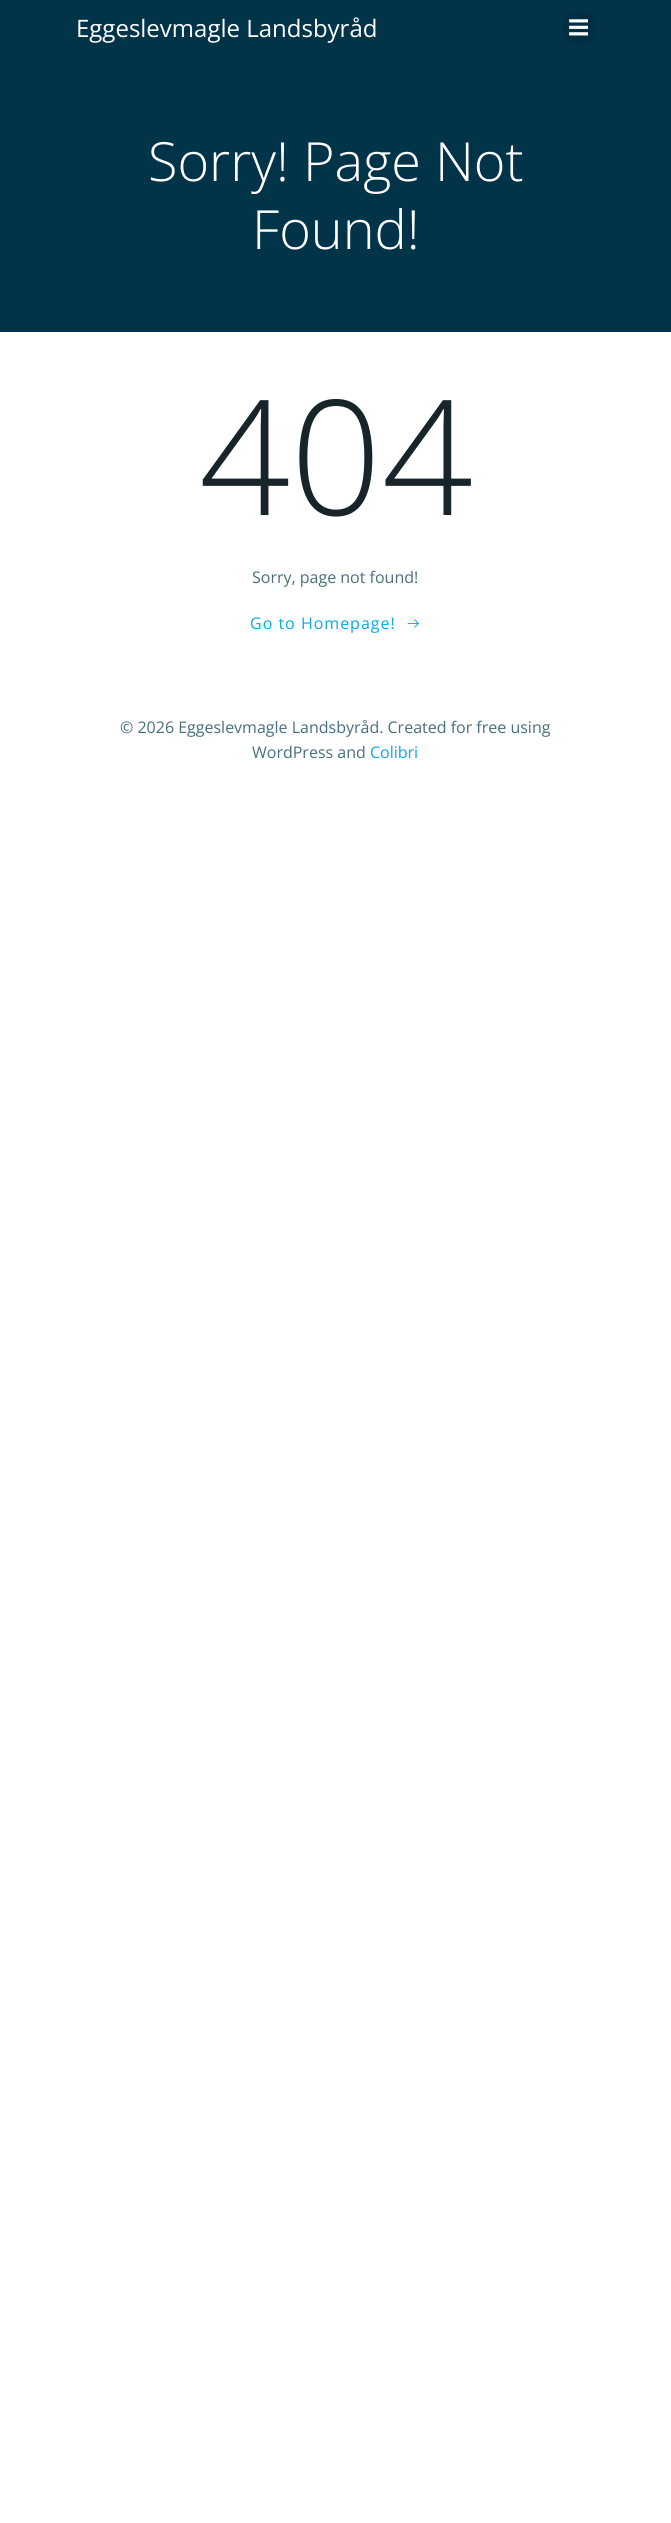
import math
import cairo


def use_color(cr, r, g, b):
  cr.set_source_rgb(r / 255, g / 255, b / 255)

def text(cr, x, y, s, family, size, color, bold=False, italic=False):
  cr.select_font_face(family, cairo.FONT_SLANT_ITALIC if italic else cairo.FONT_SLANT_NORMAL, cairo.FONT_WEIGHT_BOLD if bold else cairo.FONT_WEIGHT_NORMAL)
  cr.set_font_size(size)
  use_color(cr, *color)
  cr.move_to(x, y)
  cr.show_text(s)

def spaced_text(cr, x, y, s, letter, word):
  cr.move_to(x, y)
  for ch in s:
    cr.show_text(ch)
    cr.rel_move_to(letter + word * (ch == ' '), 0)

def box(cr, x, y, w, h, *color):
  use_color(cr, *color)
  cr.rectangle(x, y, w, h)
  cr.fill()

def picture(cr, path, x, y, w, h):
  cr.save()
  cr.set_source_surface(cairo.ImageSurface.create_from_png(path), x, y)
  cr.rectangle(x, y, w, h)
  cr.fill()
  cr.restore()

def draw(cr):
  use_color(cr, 255, 255, 255)
  cr.paint()
  box(cr, 0, 0, 671, 332, 1, 51, 73)
  use_color(cr, 1, 46, 66)
  cr.arc(579, 28, 17, 0, 2 * math.pi)
  cr.fill()
  picture(cr, "img_01.png", 569, 19, 19, 17)
  picture(cr, "img_02.png", 407, 619, 12, 9)
  text(cr, 76, 37, "Eggeslevmagle Landsbyråd", "Open Sans", 24, (255, 255, 255))
  text(cr, 148, 181, "Sorry! Page Not", "Open Sans Light", 54, (255, 255, 255))
  text(cr, 252, 249, "Found!", "Open Sans Light", 54, (255, 255, 255))
  text(cr, 199, 515, "404", "Open Sans Light", 160, (23, 37, 42))
  text(cr, 252, 583, "Sorry, page not found!", "Open Sans", 16, (70, 112, 127))
  use_color(cr, 3, 169, 244)
  spaced_text(cr, 250, 629, "Go to Homepage!", 1, 0)
  text(cr, 120, 733, "© 2026 Eggeslevmagle Landsbyråd. Created for free using", "Open Sans", 16, (70, 112, 127))
  text(cr, 252, 758, "WordPress and", "Open Sans", 16, (70, 112, 127))
  text(cr, 370, 758, "Colibri", "Open Sans", 16, (3, 169, 244))


surface = cairo.ImageSurface(cairo.FORMAT_RGB24, 671, 2523)
cr = cairo.Context(surface)
options = cairo.FontOptions()
options.set_hint_metrics(cairo.HINT_METRICS_OFF)
options.set_hint_style(cairo.HINT_STYLE_NONE)
cr.set_font_options(options)
cr.set_miter_limit(4)
draw(cr)
surface.write_to_png("out.png")
